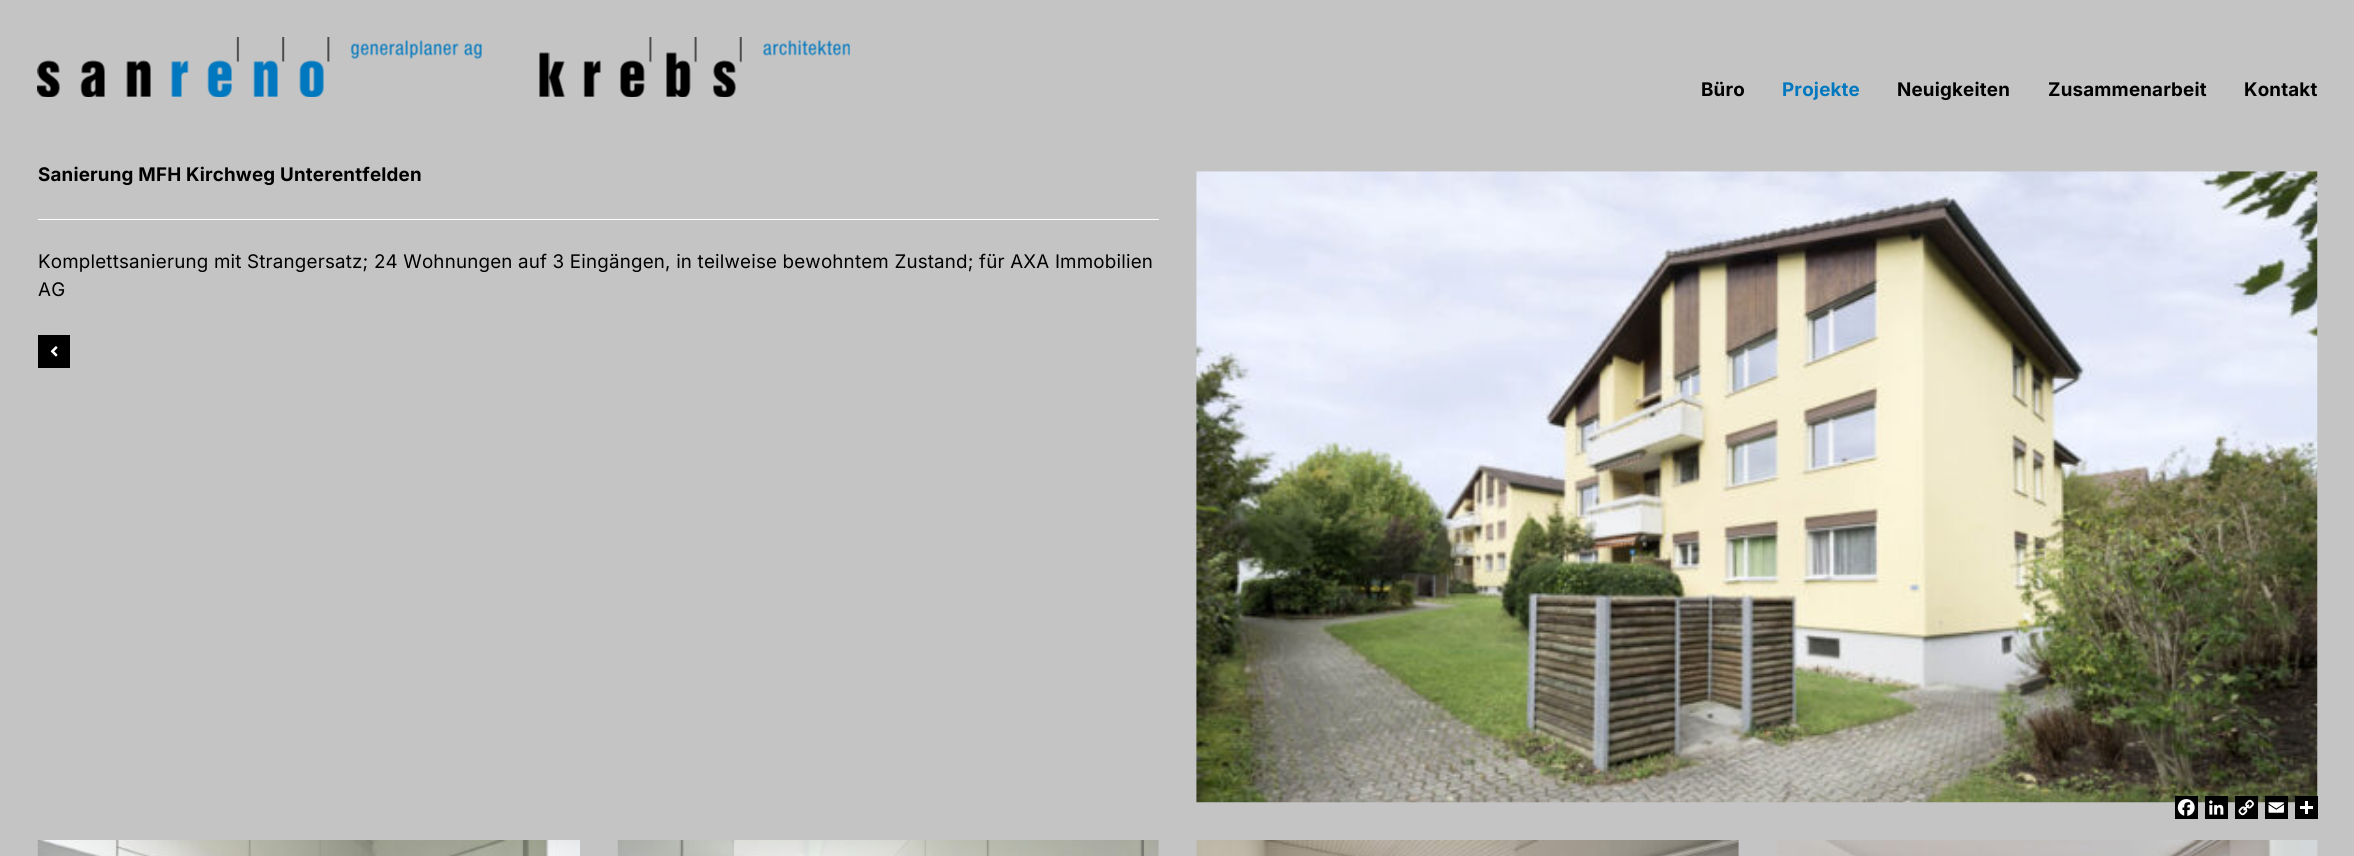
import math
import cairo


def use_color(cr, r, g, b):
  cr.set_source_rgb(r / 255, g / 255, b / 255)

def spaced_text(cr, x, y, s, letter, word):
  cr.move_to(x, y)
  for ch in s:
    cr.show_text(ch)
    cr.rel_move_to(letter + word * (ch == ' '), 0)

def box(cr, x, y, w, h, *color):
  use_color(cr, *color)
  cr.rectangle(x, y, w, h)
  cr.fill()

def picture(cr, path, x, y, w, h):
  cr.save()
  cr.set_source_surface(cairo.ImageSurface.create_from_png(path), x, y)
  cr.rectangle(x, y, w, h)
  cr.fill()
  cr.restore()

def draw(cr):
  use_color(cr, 196, 196, 196)
  cr.paint()
  picture(cr, "img_01.png", 37, 37, 813, 60)
  box(cr, 38, 219, 1121, 1, 255, 255, 255)
  box(cr, 38, 335, 32, 33, 0, 0, 0)
  picture(cr, "img_02.png", 50, 346, 8, 11)
  picture(cr, "img_03.png", 1196, 171, 1122, 632)
  picture(cr, "img_04.png", 37, 840, 543, 16)
  picture(cr, "img_05.png", 617, 840, 542, 16)
  picture(cr, "img_06.png", 1196, 840, 543, 16)
  picture(cr, "img_07.png", 1777, 840, 541, 16)
  box(cr, 2175, 796, 23, 23, 0, 0, 0)
  picture(cr, "img_08.png", 2177, 799, 18, 17)
  box(cr, 2205, 796, 23, 23, 0, 0, 0)
  picture(cr, "img_09.png", 2209, 800, 15, 15)
  box(cr, 2235, 796, 23, 23, 0, 0, 0)
  picture(cr, "img_10.png", 2238, 799, 16, 17)
  box(cr, 2265, 796, 23, 23, 0, 0, 0)
  picture(cr, "img_11.png", 2268, 802, 16, 11)
  box(cr, 2295, 796, 23, 23, 0, 0, 0)
  box(cr, 2305, 801, 3, 13, 255, 255, 255)
  box(cr, 2300, 806, 13, 3, 255, 255, 255)
  cr.select_font_face("Inter", cairo.FONT_SLANT_NORMAL, cairo.FONT_WEIGHT_BOLD)
  cr.set_font_size(18.75)
  use_color(cr, 0, 0, 0)
  spaced_text(cr, 1701, 96, "Büro", 0.19, 0)
  use_color(cr, 0, 120, 191)
  spaced_text(cr, 1782, 96, "Projekte", 0.19, 0)
  use_color(cr, 0, 0, 0)
  spaced_text(cr, 1897, 96, "Neuigkeiten", 0.19, 0)
  spaced_text(cr, 2048, 96, "Zusammenarbeit", 0.19, 0)
  spaced_text(cr, 2244, 96, "Kontakt", 0.19, 0)
  spaced_text(cr, 38, 181, "Sanierung MFH Kirchweg Unterentfelden", 0.19, 0)
  cr.select_font_face("Inter")
  spaced_text(cr, 38, 268, "Komplettsanierung mit Strangersatz; 24 Wohnungen auf 3 Eingängen, in teilweise bewohntem Zustand; für AXA Immobilien", 0.19, 0)
  spaced_text(cr, 38, 296, "AG", 0.19, 0)


surface = cairo.ImageSurface(cairo.FORMAT_RGB24, 2354, 856)
cr = cairo.Context(surface)
options = cairo.FontOptions()
options.set_hint_metrics(cairo.HINT_METRICS_OFF)
options.set_hint_style(cairo.HINT_STYLE_NONE)
cr.set_font_options(options)
cr.set_miter_limit(4)
draw(cr)
surface.write_to_png("out.png")
